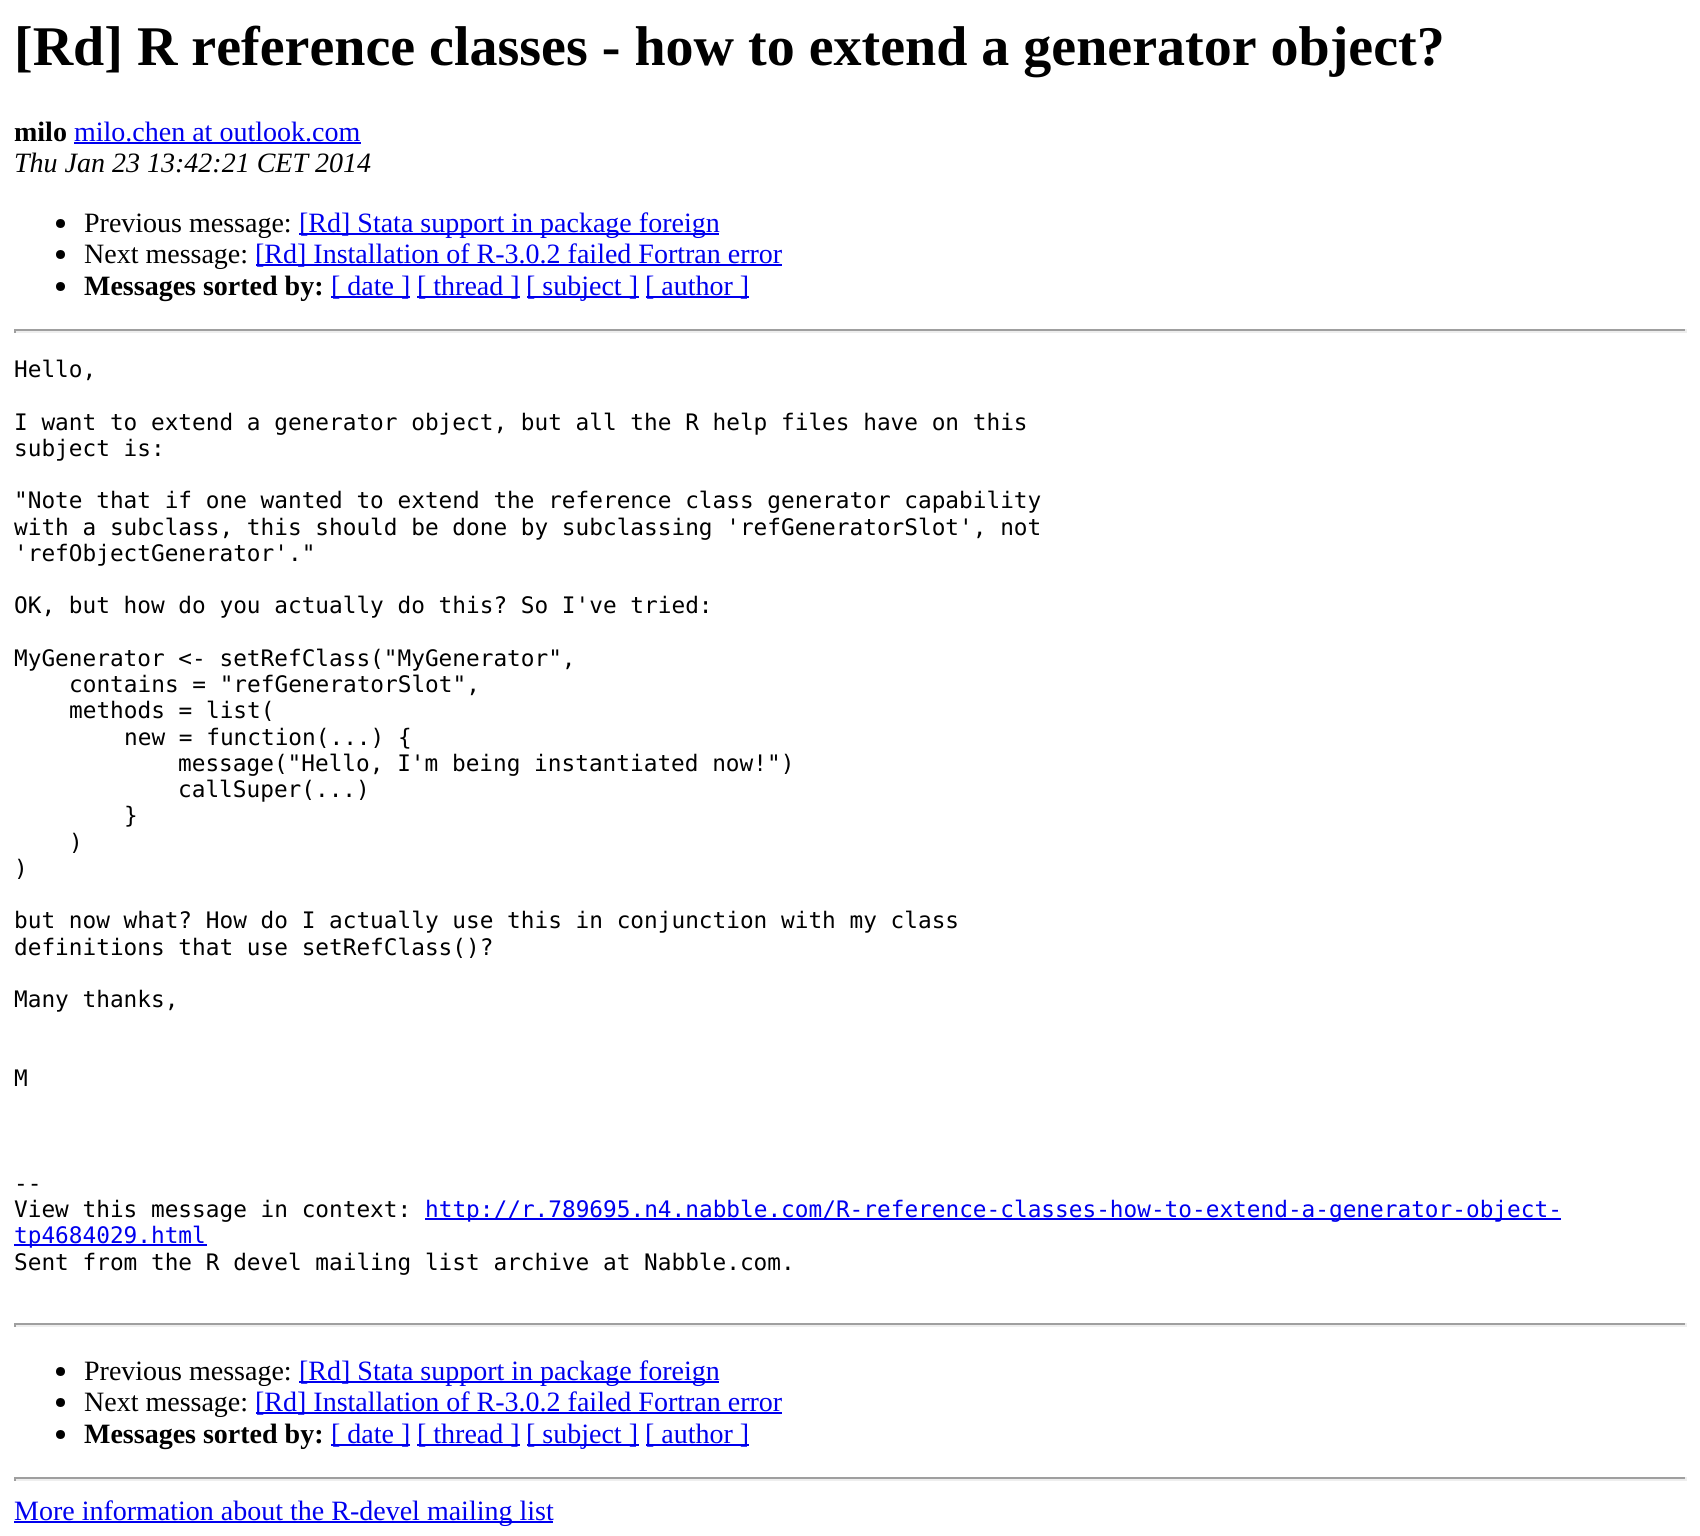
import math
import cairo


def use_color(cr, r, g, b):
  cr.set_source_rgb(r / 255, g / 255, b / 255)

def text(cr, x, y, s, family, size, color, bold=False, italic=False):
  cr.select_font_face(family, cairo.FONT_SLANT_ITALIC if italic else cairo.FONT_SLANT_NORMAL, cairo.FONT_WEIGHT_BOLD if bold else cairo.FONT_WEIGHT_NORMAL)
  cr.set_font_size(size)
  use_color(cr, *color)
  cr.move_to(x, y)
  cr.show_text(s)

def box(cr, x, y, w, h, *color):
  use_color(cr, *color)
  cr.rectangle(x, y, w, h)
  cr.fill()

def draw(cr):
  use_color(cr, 255, 255, 255)
  cr.paint()
  box(cr, 74, 142, 287, 2, 0, 0, 238)
  use_color(cr, 0, 0, 0)
  cr.arc(60.5, 223.5, 4.5, 0, 2 * math.pi)
  cr.fill()
  box(cr, 299, 233, 420, 2, 0, 0, 238)
  use_color(cr, 0, 0, 0)
  cr.arc(60.5, 254.5, 4.5, 0, 2 * math.pi)
  cr.fill()
  box(cr, 256, 264, 526, 2, 0, 0, 238)
  use_color(cr, 0, 0, 0)
  cr.arc(60.5, 286.5, 4.5, 0, 2 * math.pi)
  cr.fill()
  box(cr, 331, 296, 79, 2, 0, 0, 238)
  box(cr, 417, 296, 103, 2, 0, 0, 238)
  box(cr, 527, 296, 112, 2, 0, 0, 238)
  box(cr, 646, 296, 103, 2, 0, 0, 238)
  box(cr, 14, 329, 1673, 2, 159, 159, 159)
  box(cr, 1685, 329, 2, 4, 238, 238, 238)
  box(cr, 14, 331, 1673, 2, 238, 238, 238)
  box(cr, 14, 329, 2, 4, 159, 159, 159)
  box(cr, 425, 1218, 1136, 2, 0, 0, 238)
  box(cr, 14, 1244, 193, 2, 0, 0, 238)
  box(cr, 14, 1323, 1673, 2, 159, 159, 159)
  box(cr, 1685, 1323, 2, 4, 238, 238, 238)
  box(cr, 14, 1325, 1673, 2, 238, 238, 238)
  box(cr, 14, 1323, 2, 4, 159, 159, 159)
  use_color(cr, 0, 0, 0)
  cr.arc(60.5, 1371.5, 4.5, 0, 2 * math.pi)
  cr.fill()
  box(cr, 299, 1381, 420, 2, 0, 0, 238)
  use_color(cr, 0, 0, 0)
  cr.arc(60.5, 1402.5, 4.5, 0, 2 * math.pi)
  cr.fill()
  box(cr, 256, 1412, 526, 2, 0, 0, 238)
  use_color(cr, 0, 0, 0)
  cr.arc(60.5, 1434.5, 4.5, 0, 2 * math.pi)
  cr.fill()
  box(cr, 331, 1444, 79, 2, 0, 0, 238)
  box(cr, 417, 1444, 103, 2, 0, 0, 238)
  box(cr, 527, 1444, 112, 2, 0, 0, 238)
  box(cr, 646, 1444, 103, 2, 0, 0, 238)
  box(cr, 14, 1477, 1673, 2, 159, 159, 159)
  box(cr, 1685, 1477, 2, 4, 238, 238, 238)
  box(cr, 14, 1479, 1673, 2, 238, 238, 238)
  box(cr, 14, 1477, 2, 4, 159, 159, 159)
  box(cr, 14, 1521, 539, 2, 0, 0, 238)
  text(cr, 14, 65, "[Rd] R reference classes - how to extend a generator object?", "Liberation Serif", 56, (0, 0, 0), bold=True)
  text(cr, 14, 141, "milo", "Liberation Serif", 28, (0, 0, 0), bold=True)
  text(cr, 74, 141, "milo.chen at outlook.com", "Liberation Serif", 28, (0, 0, 238))
  text(cr, 14, 172, "Thu Jan 23 13:42:21 CET 2014", "Liberation Serif", 28, (0, 0, 0), italic=True)
  text(cr, 84, 232, "Previous message:", "Liberation Serif", 28, (0, 0, 0))
  text(cr, 299, 232, "[Rd] Stata support in package foreign", "Liberation Serif", 28, (0, 0, 238))
  text(cr, 84, 263, "Next message:", "Liberation Serif", 28, (0, 0, 0))
  text(cr, 255, 263, "[Rd] Installation of R-3.0.2 failed Fortran error", "Liberation Serif", 28, (0, 0, 238))
  text(cr, 84, 295, "Messages sorted by:", "Liberation Serif", 28, (0, 0, 0), bold=True)
  text(cr, 331, 295, "[ date ]", "Liberation Serif", 28, (0, 0, 238))
  text(cr, 417, 295, "[ thread ]", "Liberation Serif", 28, (0, 0, 238))
  text(cr, 526, 295, "[ subject ]", "Liberation Serif", 28, (0, 0, 238))
  text(cr, 645, 295, "[ author ]", "Liberation Serif", 28, (0, 0, 238))
  text(cr, 14, 377, "Hello,", "DejaVu Sans Mono", 22.75, (0, 0, 0))
  text(cr, 14, 430, "I want to extend a generator object, but all the R help files have on this", "DejaVu Sans Mono", 22.75, (0, 0, 0))
  text(cr, 14, 456, "subject is:", "DejaVu Sans Mono", 22.75, (0, 0, 0))
  text(cr, 14, 508, "\"Note that if one wanted to extend the reference class generator capability", "DejaVu Sans Mono", 22.75, (0, 0, 0))
  text(cr, 14, 535, "with a subclass, this should be done by subclassing 'refGeneratorSlot', not", "DejaVu Sans Mono", 22.75, (0, 0, 0))
  text(cr, 14, 561, "'refObjectGenerator'.\"", "DejaVu Sans Mono", 22.75, (0, 0, 0))
  text(cr, 14, 613, "OK, but how do you actually do this? So I've tried:", "DejaVu Sans Mono", 22.75, (0, 0, 0))
  text(cr, 14, 666, "MyGenerator <- setRefClass(\"MyGenerator\",", "DejaVu Sans Mono", 22.75, (0, 0, 0))
  text(cr, 69, 692, "contains = \"refGeneratorSlot\",", "DejaVu Sans Mono", 22.75, (0, 0, 0))
  text(cr, 69, 718, "methods = list(", "DejaVu Sans Mono", 22.75, (0, 0, 0))
  text(cr, 124, 745, "new = function(...) {", "DejaVu Sans Mono", 22.75, (0, 0, 0))
  text(cr, 178, 771, "message(\"Hello, I'm being instantiated now!\")", "DejaVu Sans Mono", 22.75, (0, 0, 0))
  text(cr, 178, 797, "callSuper(...)", "DejaVu Sans Mono", 22.75, (0, 0, 0))
  text(cr, 124, 823, "}", "DejaVu Sans Mono", 22.75, (0, 0, 0))
  text(cr, 69, 850, ")", "DejaVu Sans Mono", 22.75, (0, 0, 0))
  text(cr, 14, 876, ")", "DejaVu Sans Mono", 22.75, (0, 0, 0))
  text(cr, 14, 928, "but now what? How do I actually use this in conjunction with my class", "DejaVu Sans Mono", 22.75, (0, 0, 0))
  text(cr, 14, 955, "definitions that use setRefClass()?", "DejaVu Sans Mono", 22.75, (0, 0, 0))
  text(cr, 14, 1007, "Many thanks,", "DejaVu Sans Mono", 22.75, (0, 0, 0))
  text(cr, 14, 1086, "M", "DejaVu Sans Mono", 22.75, (0, 0, 0))
  text(cr, 14, 1191, "--", "DejaVu Sans Mono", 22.75, (0, 0, 0))
  text(cr, 14, 1217, "View this message in context:", "DejaVu Sans Mono", 22.75, (0, 0, 0))
  text(cr, 425, 1217, "http://r.789695.n4.nabble.com/R-reference-classes-how-to-extend-a-generator-object-", "DejaVu Sans Mono", 22.75, (0, 0, 238))
  text(cr, 14, 1243, "tp4684029.html", "DejaVu Sans Mono", 22.75, (0, 0, 238))
  text(cr, 14, 1270, "Sent from the R devel mailing list archive at Nabble.com.", "DejaVu Sans Mono", 22.75, (0, 0, 0))
  text(cr, 84, 1380, "Previous message:", "Liberation Serif", 28, (0, 0, 0))
  text(cr, 299, 1380, "[Rd] Stata support in package foreign", "Liberation Serif", 28, (0, 0, 238))
  text(cr, 84, 1411, "Next message:", "Liberation Serif", 28, (0, 0, 0))
  text(cr, 255, 1411, "[Rd] Installation of R-3.0.2 failed Fortran error", "Liberation Serif", 28, (0, 0, 238))
  text(cr, 84, 1443, "Messages sorted by:", "Liberation Serif", 28, (0, 0, 0), bold=True)
  text(cr, 331, 1443, "[ date ]", "Liberation Serif", 28, (0, 0, 238))
  text(cr, 417, 1443, "[ thread ]", "Liberation Serif", 28, (0, 0, 238))
  text(cr, 526, 1443, "[ subject ]", "Liberation Serif", 28, (0, 0, 238))
  text(cr, 645, 1443, "[ author ]", "Liberation Serif", 28, (0, 0, 238))
  text(cr, 14, 1520, "More information about the R-devel mailing list", "Liberation Serif", 28, (0, 0, 238))


surface = cairo.ImageSurface(cairo.FORMAT_RGB24, 1700, 1536)
cr = cairo.Context(surface)
options = cairo.FontOptions()
options.set_hint_metrics(cairo.HINT_METRICS_OFF)
options.set_hint_style(cairo.HINT_STYLE_NONE)
cr.set_font_options(options)
cr.set_miter_limit(4)
draw(cr)
surface.write_to_png("out.png")
